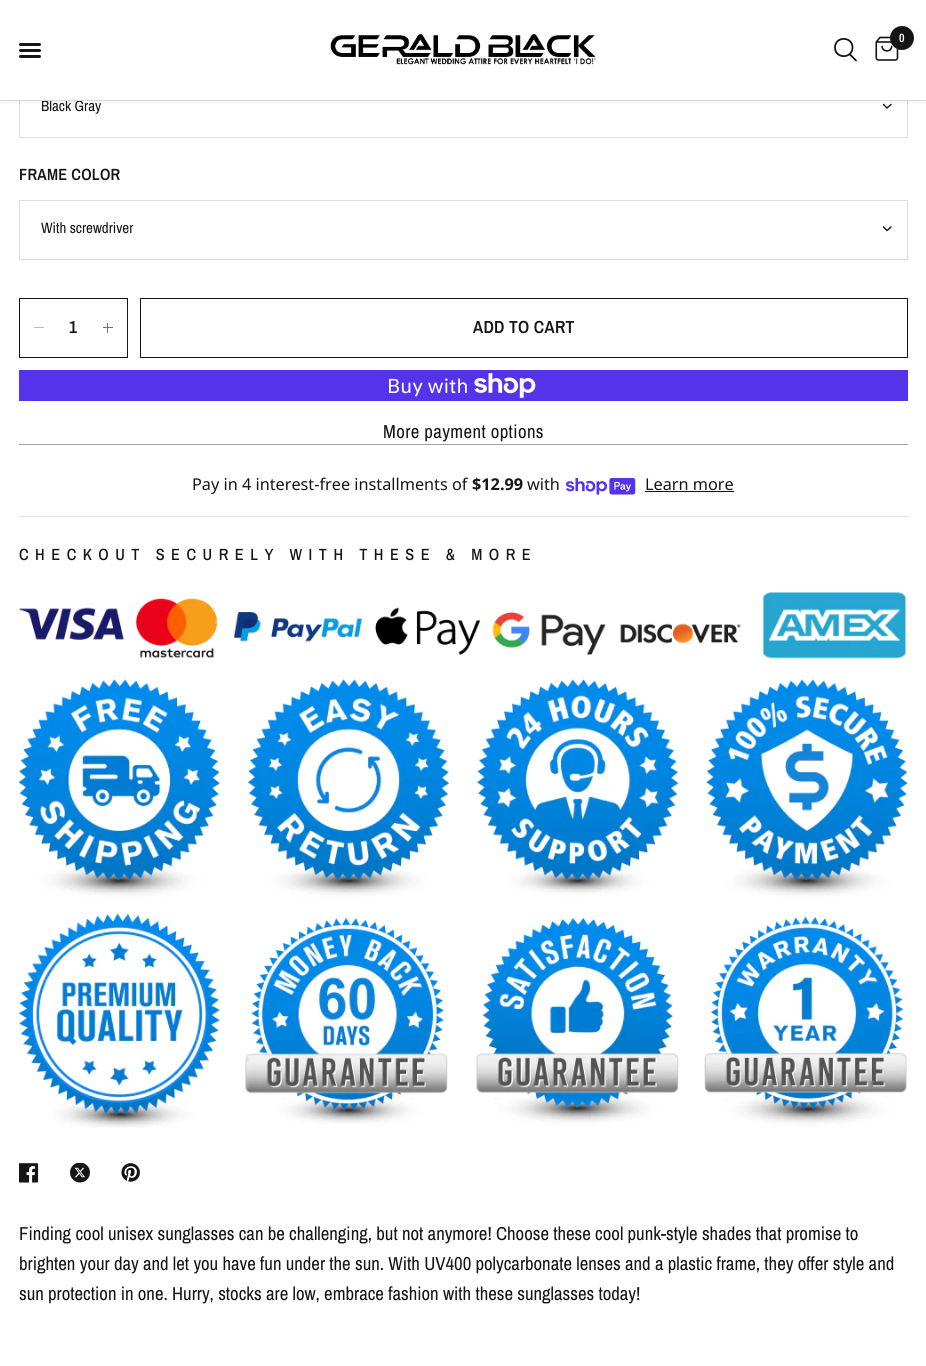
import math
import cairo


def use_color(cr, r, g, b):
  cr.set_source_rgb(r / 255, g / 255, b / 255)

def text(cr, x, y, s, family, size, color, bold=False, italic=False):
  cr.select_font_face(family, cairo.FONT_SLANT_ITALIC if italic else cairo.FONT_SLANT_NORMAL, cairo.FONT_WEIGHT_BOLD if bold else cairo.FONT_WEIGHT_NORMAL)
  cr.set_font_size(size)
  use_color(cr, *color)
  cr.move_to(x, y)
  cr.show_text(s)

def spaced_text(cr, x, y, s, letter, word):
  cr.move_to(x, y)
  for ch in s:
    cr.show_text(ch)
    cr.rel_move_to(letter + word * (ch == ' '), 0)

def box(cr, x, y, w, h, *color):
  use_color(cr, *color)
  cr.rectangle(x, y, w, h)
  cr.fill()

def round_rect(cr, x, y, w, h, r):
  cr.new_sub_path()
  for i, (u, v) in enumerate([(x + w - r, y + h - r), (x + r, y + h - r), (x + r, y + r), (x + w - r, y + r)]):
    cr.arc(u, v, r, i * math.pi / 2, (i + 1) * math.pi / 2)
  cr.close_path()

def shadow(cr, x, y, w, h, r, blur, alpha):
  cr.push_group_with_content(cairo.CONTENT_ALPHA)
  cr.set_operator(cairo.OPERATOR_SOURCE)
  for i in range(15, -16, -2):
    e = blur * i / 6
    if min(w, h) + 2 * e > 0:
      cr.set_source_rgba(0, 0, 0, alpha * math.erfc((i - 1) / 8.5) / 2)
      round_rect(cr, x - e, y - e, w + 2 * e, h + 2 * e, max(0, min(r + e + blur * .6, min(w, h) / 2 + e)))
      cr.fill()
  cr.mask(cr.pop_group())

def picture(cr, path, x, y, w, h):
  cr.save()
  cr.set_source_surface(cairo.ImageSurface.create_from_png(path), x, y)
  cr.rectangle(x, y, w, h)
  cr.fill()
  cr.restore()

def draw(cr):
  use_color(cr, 255, 255, 255)
  cr.paint()
  cr.rectangle(19.5, 78.5, 888, 59)
  use_color(cr, 222, 222, 222)
  cr.set_line_width(1)
  cr.stroke()
  box(cr, 19, 78, 889, 22, 255, 255, 255)
  cr.new_path()
  cr.move_to(891, 104.5)
  cr.line_to(887, 108)
  cr.line_to(883.5, 104.5)
  use_color(cr, 21, 21, 21)
  cr.set_line_width(1.4)
  cr.set_line_cap(cairo.LINE_CAP_ROUND)
  cr.set_line_join(cairo.LINE_JOIN_ROUND)
  cr.stroke()
  cr.rectangle(19.5, 200.5, 888, 59)
  use_color(cr, 222, 222, 222)
  cr.set_line_width(1)
  cr.set_line_cap(cairo.LINE_CAP_BUTT)
  cr.set_line_join(cairo.LINE_JOIN_MITER)
  cr.stroke()
  cr.new_path()
  cr.move_to(891, 227)
  cr.line_to(887, 230.5)
  cr.line_to(883.5, 227)
  use_color(cr, 21, 21, 21)
  cr.set_line_width(1.4)
  cr.set_line_cap(cairo.LINE_CAP_ROUND)
  cr.set_line_join(cairo.LINE_JOIN_ROUND)
  cr.stroke()
  cr.rectangle(19.5, 298.5, 108, 59)
  cr.set_line_width(1)
  cr.set_line_cap(cairo.LINE_CAP_BUTT)
  cr.set_line_join(cairo.LINE_JOIN_MITER)
  cr.stroke()
  box(cr, 34, 327, 10, 1, 185, 185, 185)
  box(cr, 107, 323, 1, 10, 115, 115, 115)
  box(cr, 103, 327, 10, 1, 115, 115, 115)
  cr.rectangle(140.5, 298.5, 767, 59)
  use_color(cr, 21, 21, 21)
  cr.stroke()
  box(cr, 19, 370, 889, 31, 84, 51, 235)
  picture(cr, "img_03.png", 474, 373, 62, 25)
  box(cr, 19, 444, 889, 1, 161, 161, 161)
  box(cr, 19, 516, 889, 1, 226, 226, 226)
  picture(cr, "img_04.png", 566, 478, 70, 17)
  box(cr, 645, 491, 89, 1, 21, 21, 21)
  picture(cr, "img_05.png", 18, 592, 890, 536)
  picture(cr, "img_06.png", 19, 1163, 20, 20)
  picture(cr, "img_07.png", 70, 1163, 20, 20)
  picture(cr, "img_08.png", 121, 1163, 19, 19)
  text(cr, 41, 111, "Black Gray", "Archivo Narrow", 15, (21, 21, 21))
  box(cr, 0, 100, 926, 1, 226, 226, 226)
  cr.save()
  cr.rectangle(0, 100, 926, 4)
  cr.clip()
  use_color(cr, 0, 0, 0)
  shadow(cr, 0, 3, 926, 100, 0, 3, 0.06)
  cr.restore()
  picture(cr, "img_02.png", 875, 36, 24, 25)
  use_color(cr, 21, 21, 21)
  cr.arc(902, 38, 12, 0, 2 * math.pi)
  cr.fill()
  text(cr, 899, 42, "0", "Archivo Narrow SemiBold", 12, (255, 255, 255))
  picture(cr, "img_01.png", 330, 33, 266, 32)
  use_color(cr, 21, 21, 21)
  round_rect(cr, 19, 55, 22, 3, 1.5)
  cr.fill()
  round_rect(cr, 19, 49, 22, 3, 1.5)
  cr.fill()
  round_rect(cr, 19, 43, 22, 3, 1.5)
  cr.fill()
  cr.new_path()
  cr.move_to(850, 54.5)
  cr.line_to(856, 60.5)
  cr.move_to(852.5, 47.5)
  cr.curve_to(852.5, 59, 835, 59, 835, 47.5)
  cr.curve_to(835, 36, 852.5, 36, 852.5, 47.5)
  cr.close_path()
  cr.set_line_width(1.8)
  cr.set_line_cap(cairo.LINE_CAP_ROUND)
  cr.set_line_join(cairo.LINE_JOIN_ROUND)
  cr.stroke()
  cr.set_font_size(16.25)
  spaced_text(cr, 19, 180, "FRAME COLOR", 0.25, 0)
  text(cr, 41, 233, "With screwdriver", "Archivo Narrow", 15, (21, 21, 21))
  text(cr, 69, 333, "1", "Archivo Narrow SemiBold", 17.5, (21, 21, 21))
  spaced_text(cr, 473, 333, "ADD TO CART", 0.3, 0)
  text(cr, 387, 393, "Buy with", "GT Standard", 20, (255, 255, 255))
  cr.select_font_face("Archivo Narrow")
  cr.set_font_size(18.75)
  use_color(cr, 21, 21, 21)
  spaced_text(cr, 383, 438, "More payment options", 0.4, 0)
  text(cr, 192, 490, "Pay in 4 interest-free installments of", "Noto Sans", 16.25, (21, 21, 21))
  text(cr, 472, 490, "$12.99", "Noto Sans", 16.25, (21, 21, 21), bold=True)
  text(cr, 527, 490, "with", "Noto Sans", 16.25, (21, 21, 21))
  text(cr, 645, 490, "Learn more", "Noto Sans", 16.25, (21, 21, 21))
  cr.select_font_face("Archivo Narrow Medium")
  spaced_text(cr, 19, 560, "CHECKOUT SECURELY WITH THESE & MORE", 6.5, -0.5)
  text(cr, 19, 1240, "Finding cool unisex sunglasses can be challenging, but not anymore! Choose these cool punk-style shades that promise to", "Archivo Narrow", 18.75, (21, 21, 21))
  text(cr, 19, 1270, "brighten your day and let you have fun under the sun. With UV400 polycarbonate lenses and a plastic frame, they offer style and", "Archivo Narrow", 18.75, (21, 21, 21))
  text(cr, 19, 1300, "sun protection in one. Hurry, stocks are low, embrace fashion with these sunglasses today!", "Archivo Narrow", 18.75, (21, 21, 21))


surface = cairo.ImageSurface(cairo.FORMAT_RGB24, 926, 1366)
cr = cairo.Context(surface)
options = cairo.FontOptions()
options.set_hint_metrics(cairo.HINT_METRICS_OFF)
options.set_hint_style(cairo.HINT_STYLE_NONE)
cr.set_font_options(options)
cr.set_miter_limit(4)
draw(cr)
surface.write_to_png("out.png")
